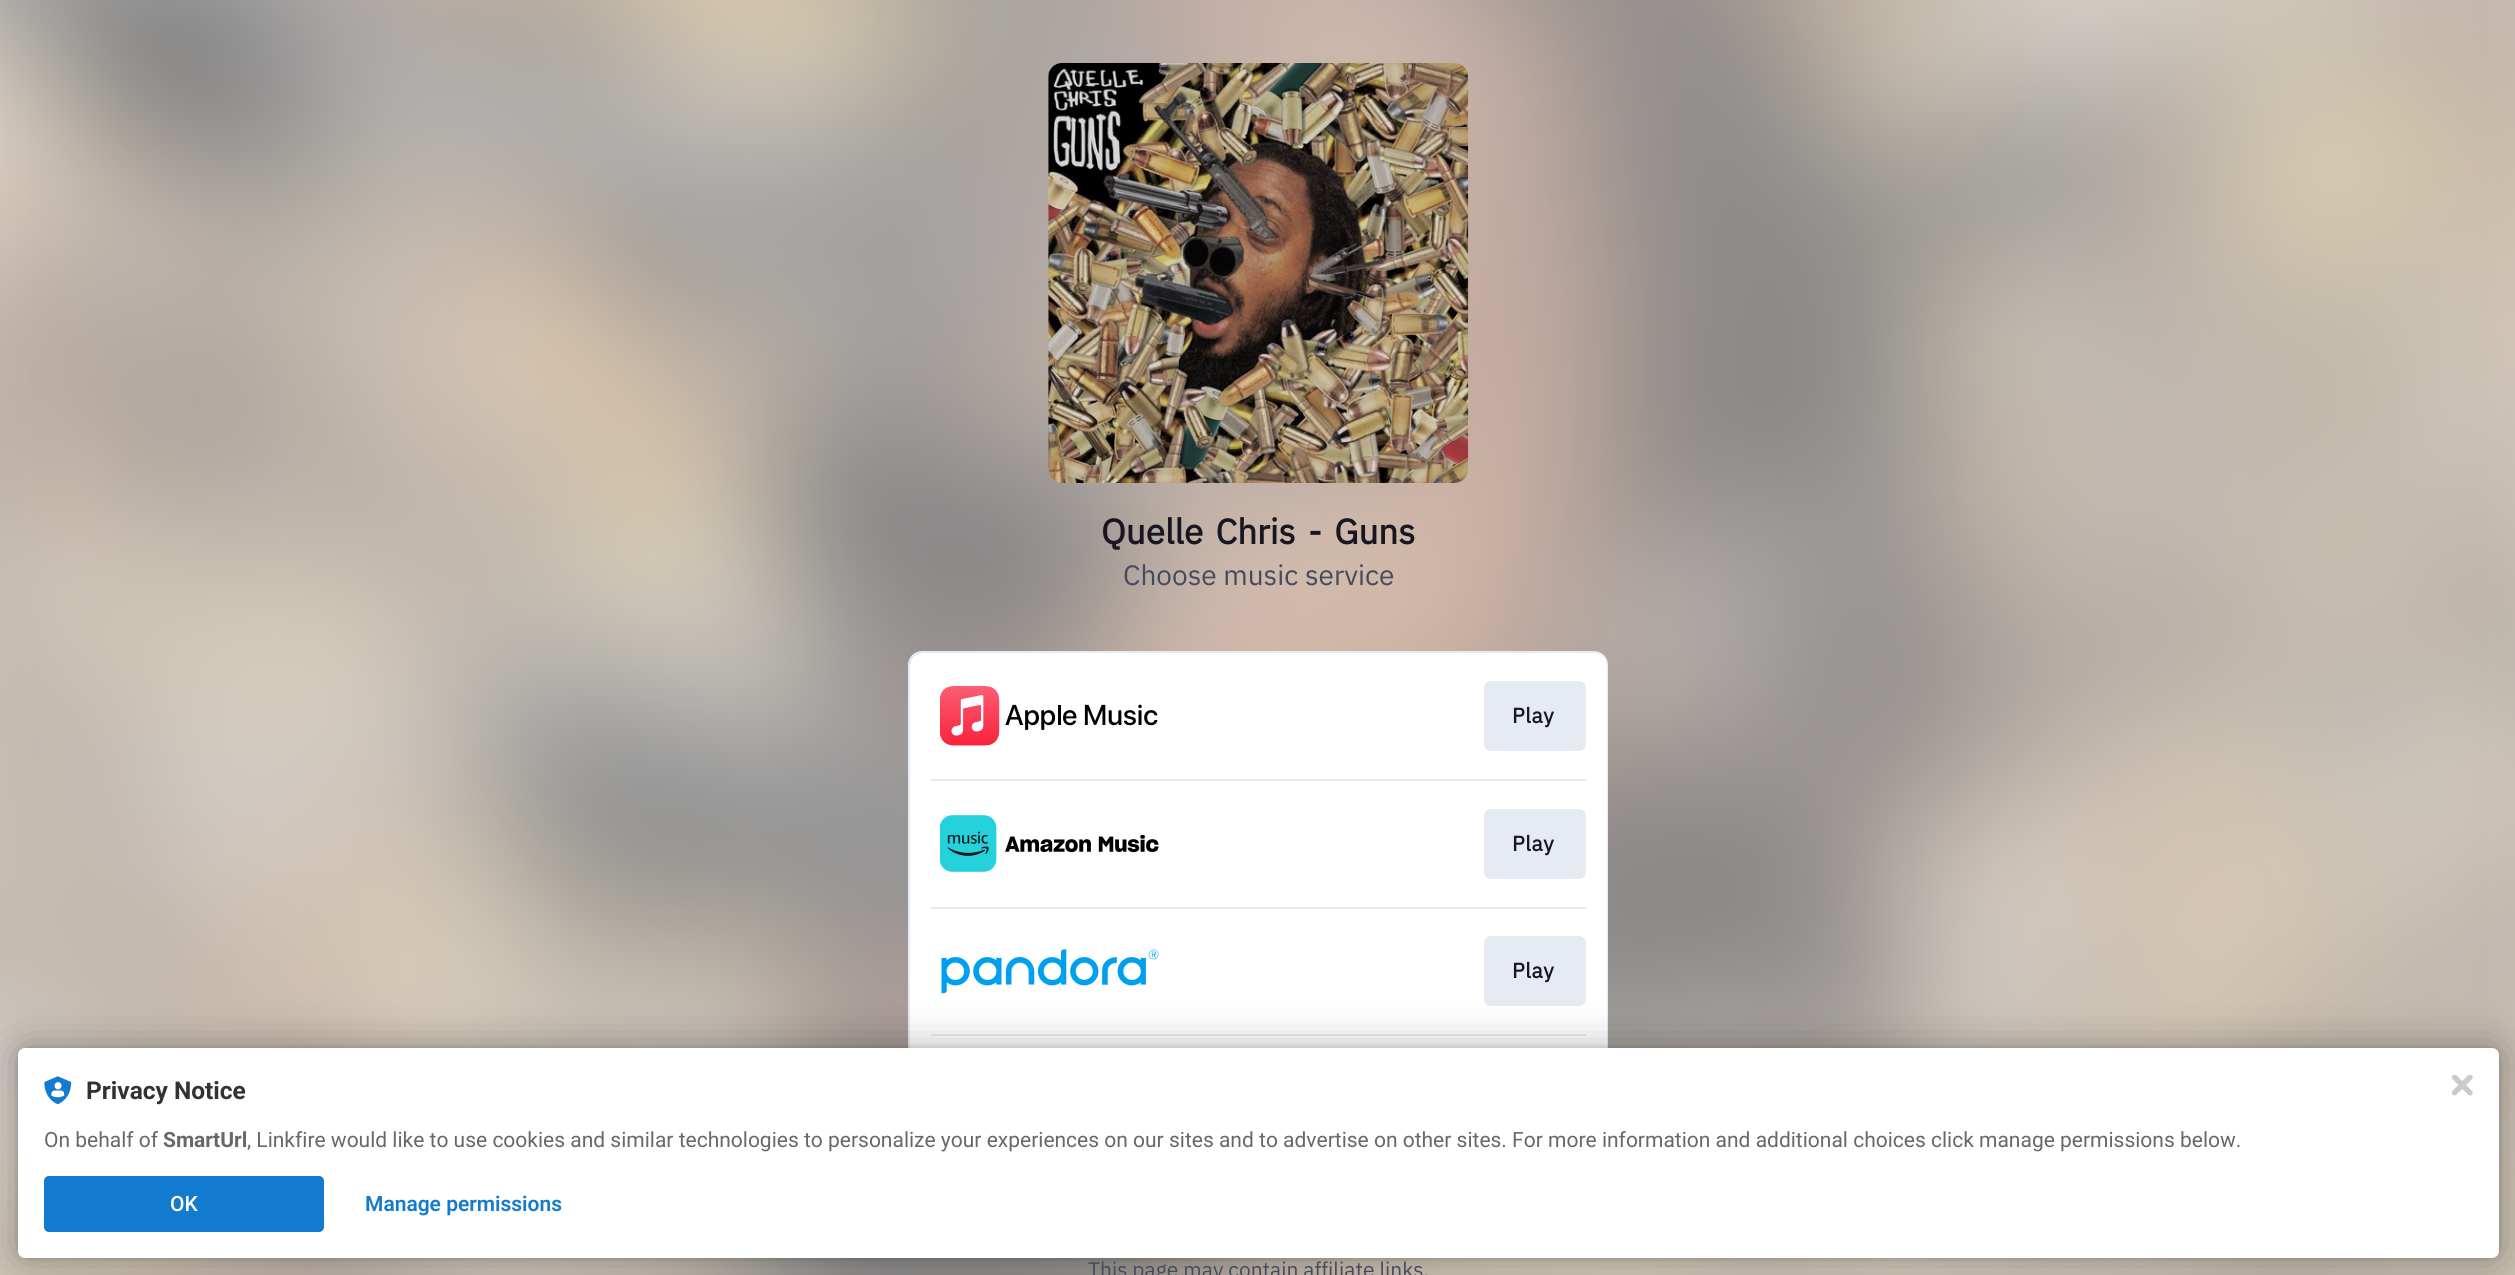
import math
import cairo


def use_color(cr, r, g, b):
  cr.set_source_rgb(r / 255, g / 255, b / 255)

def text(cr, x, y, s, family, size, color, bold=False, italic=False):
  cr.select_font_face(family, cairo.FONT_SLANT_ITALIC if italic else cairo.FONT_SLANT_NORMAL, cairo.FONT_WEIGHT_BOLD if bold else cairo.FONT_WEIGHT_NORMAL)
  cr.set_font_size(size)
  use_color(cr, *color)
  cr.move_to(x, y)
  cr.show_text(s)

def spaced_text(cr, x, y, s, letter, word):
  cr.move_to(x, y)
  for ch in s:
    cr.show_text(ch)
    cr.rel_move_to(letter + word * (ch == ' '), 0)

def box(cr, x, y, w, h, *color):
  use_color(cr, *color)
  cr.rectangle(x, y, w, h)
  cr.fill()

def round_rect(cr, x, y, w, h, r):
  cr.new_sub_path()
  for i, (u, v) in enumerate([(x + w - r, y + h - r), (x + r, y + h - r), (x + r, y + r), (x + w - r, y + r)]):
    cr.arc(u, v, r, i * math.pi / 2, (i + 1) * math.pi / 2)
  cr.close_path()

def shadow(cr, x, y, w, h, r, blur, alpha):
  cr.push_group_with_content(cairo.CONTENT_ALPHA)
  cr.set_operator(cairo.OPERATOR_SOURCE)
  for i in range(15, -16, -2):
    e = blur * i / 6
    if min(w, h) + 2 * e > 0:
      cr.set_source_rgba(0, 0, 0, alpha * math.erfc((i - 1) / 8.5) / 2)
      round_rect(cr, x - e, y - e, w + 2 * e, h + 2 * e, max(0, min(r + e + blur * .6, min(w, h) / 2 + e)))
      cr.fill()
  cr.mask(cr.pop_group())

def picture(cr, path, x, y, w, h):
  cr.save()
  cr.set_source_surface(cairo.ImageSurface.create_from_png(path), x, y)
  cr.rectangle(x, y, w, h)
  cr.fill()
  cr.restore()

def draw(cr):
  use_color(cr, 255, 255, 255)
  cr.paint()
  picture(cr, "img_01.png", 0, 0, 2515, 1275)
  picture(cr, "img_02.png", 1048, 63, 421, 420)
  round_rect(cr, 909, 652, 698, 511, 13)
  use_color(cr, 230, 234, 242)
  cr.stroke()
  use_color(cr, 255, 255, 255)
  round_rect(cr, 910, 653, 697, 509, 12)
  cr.fill()
  picture(cr, "img_03.png", 940, 686, 218, 60)
  use_color(cr, 230, 234, 242)
  round_rect(cr, 1484, 681, 102, 70, 7)
  cr.fill()
  box(cr, 931, 779, 655, 2, 230, 234, 242)
  picture(cr, "img_04.png", 940, 815, 219, 57)
  round_rect(cr, 1484, 809, 102, 70, 7)
  cr.fill()
  box(cr, 931, 907, 655, 2, 230, 234, 242)
  picture(cr, "img_05.png", 941, 949, 218, 45)
  round_rect(cr, 1484, 936, 102, 70, 7)
  cr.fill()
  box(cr, 931, 1034, 655, 2, 230, 234, 242)
  use_color(cr, 0, 0, 0)
  shadow(cr, 18, 1048, 2481, 210, 7, 3.5, 0.12)
  shadow(cr, 18, 1048, 2481, 210, 7, 21, 0.3)
  use_color(cr, 255, 255, 255)
  round_rect(cr, 18, 1048, 2481, 210, 7)
  cr.fill()
  picture(cr, "img_06.png", 44, 1076, 28, 28)
  use_color(cr, 19, 123, 207)
  round_rect(cr, 44, 1176, 280, 56, 5)
  cr.fill()
  picture(cr, "img_07.png", 2452, 1075, 21, 21)
  cr.select_font_face("IBM Plex Sans", cairo.FONT_SLANT_NORMAL, cairo.FONT_WEIGHT_BOLD)
  cr.set_font_size(35)
  use_color(cr, 24, 23, 33)
  spaced_text(cr, 1101, 544, "Quelle Chris - Guns", 0, 4)
  text(cr, 1123, 585, "Choose music service", "IBM Plex Sans", 28, (69, 75, 95))
  cr.select_font_face("IBM Plex Sans", cairo.FONT_SLANT_NORMAL, cairo.FONT_WEIGHT_BOLD)
  cr.set_font_size(21)
  use_color(cr, 24, 23, 33)
  spaced_text(cr, 1512, 723, "Play", 0.5, 0)
  spaced_text(cr, 1512, 851, "Play", 0.5, 0)
  spaced_text(cr, 1512, 978, "Play", 0.5, 0)
  text(cr, 1088, 1277, "This page may contain affiliate links.", "IBM Plex Sans", 21, (69, 75, 95))
  text(cr, 86, 1099, "Privacy Notice", "Roboto", 24.5, (50, 50, 50), bold=True)
  text(cr, 44, 1147, "On behalf of", "Roboto", 21, (104, 104, 104))
  text(cr, 163, 1147, "SmartUrl", "Roboto", 21, (104, 104, 104), bold=True)
  text(cr, 247, 1147, ", Linkfire would like to use cookies and similar technologies to personalize your experiences on our sites and to advertise on other sites. For more information and additional choices click manage permissions below.", "Roboto", 21, (104, 104, 104))
  text(cr, 170, 1211, "OK", "Roboto Medium", 21, (255, 255, 255))
  text(cr, 365, 1211, "Manage permissions", "Roboto SemiBold", 21, (19, 123, 207))


surface = cairo.ImageSurface(cairo.FORMAT_RGB24, 2515, 1275)
cr = cairo.Context(surface)
options = cairo.FontOptions()
options.set_hint_metrics(cairo.HINT_METRICS_OFF)
options.set_hint_style(cairo.HINT_STYLE_NONE)
cr.set_font_options(options)
cr.set_miter_limit(4)
draw(cr)
surface.write_to_png("out.png")
